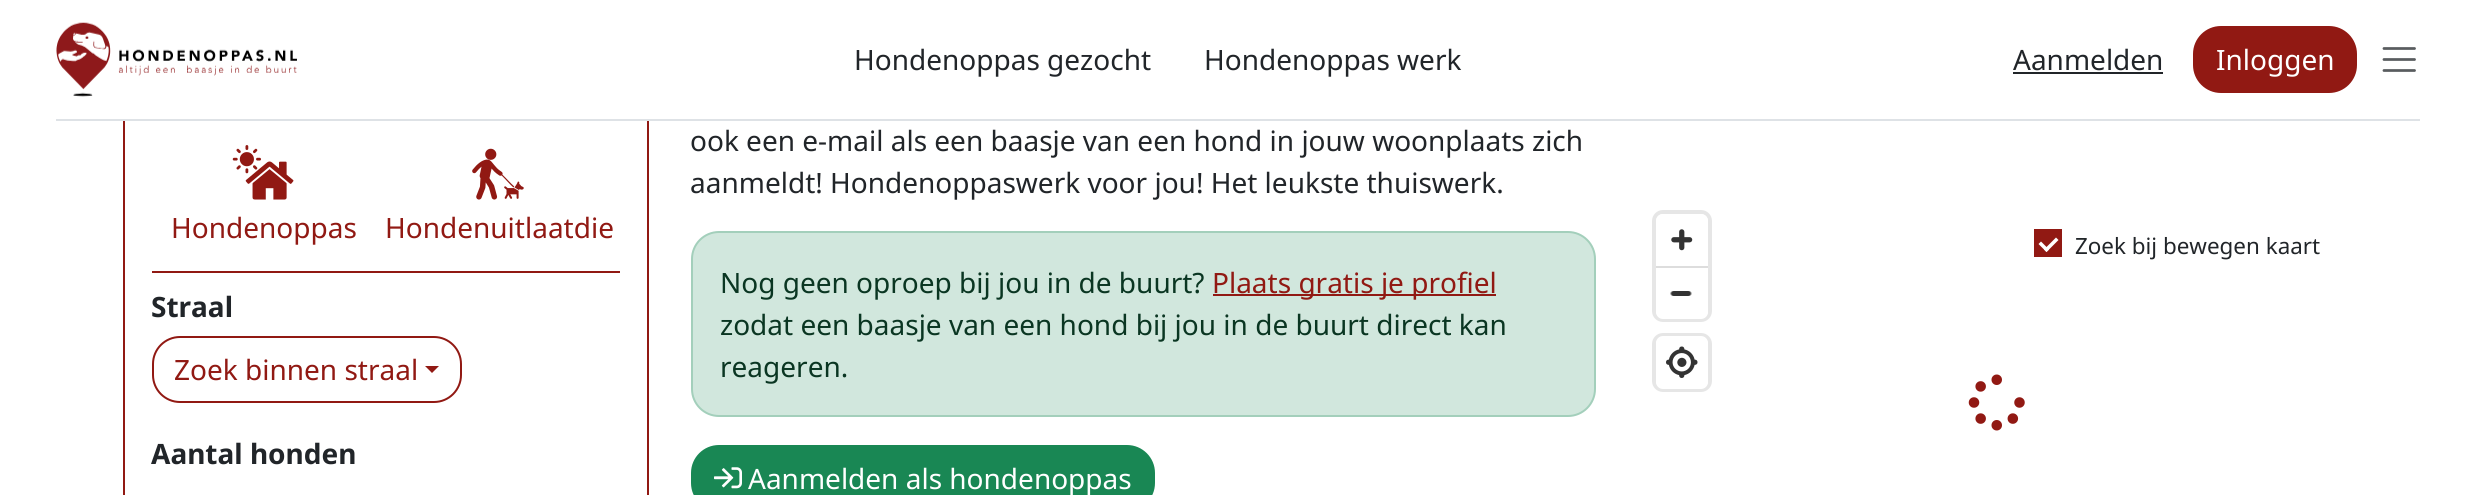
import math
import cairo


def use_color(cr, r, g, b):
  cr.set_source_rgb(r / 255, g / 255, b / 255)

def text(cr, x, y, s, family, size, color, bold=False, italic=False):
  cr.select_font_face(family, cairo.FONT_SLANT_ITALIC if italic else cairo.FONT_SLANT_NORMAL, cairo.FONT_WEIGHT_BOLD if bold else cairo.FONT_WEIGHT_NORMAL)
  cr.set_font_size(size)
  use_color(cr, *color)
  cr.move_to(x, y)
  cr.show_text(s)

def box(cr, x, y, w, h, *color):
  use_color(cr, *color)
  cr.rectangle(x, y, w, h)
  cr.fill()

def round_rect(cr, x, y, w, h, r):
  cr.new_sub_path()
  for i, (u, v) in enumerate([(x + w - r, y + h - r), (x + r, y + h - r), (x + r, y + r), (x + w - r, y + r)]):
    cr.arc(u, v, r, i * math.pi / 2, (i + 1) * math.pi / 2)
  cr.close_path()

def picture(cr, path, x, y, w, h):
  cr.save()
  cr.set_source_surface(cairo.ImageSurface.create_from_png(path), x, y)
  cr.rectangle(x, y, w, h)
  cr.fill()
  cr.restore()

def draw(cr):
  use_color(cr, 255, 255, 255)
  cr.paint()
  cr.rectangle(124, 26, 524, 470)
  use_color(cr, 145, 25, 19)
  cr.stroke()
  box(cr, 123, 25, 526, 94, 255, 255, 255)
  box(cr, 56, 119, 2364, 2, 222, 226, 230)
  picture(cr, "img_01.png", 56, 22, 241, 75)
  box(cr, 2013, 72, 150, 2, 33, 37, 41)
  use_color(cr, 145, 25, 19)
  round_rect(cr, 2194, 27, 162, 65, 27)
  cr.fill_preserve()
  cr.stroke()
  cr.new_path()
  cr.move_to(2384, 48.5)
  cr.line_to(2414.5, 48.5)
  cr.move_to(2384, 59.5)
  cr.line_to(2414.5, 59.5)
  cr.move_to(2384, 70.5)
  cr.line_to(2414.5, 70.5)
  use_color(cr, 89, 92, 95)
  cr.set_line_width(2.8)
  cr.set_line_cap(cairo.LINE_CAP_ROUND)
  cr.stroke()
  box(cr, 152, 271, 468, 2, 145, 25, 19)
  picture(cr, "img_02.png", 232, 145, 62, 55)
  picture(cr, "img_03.png", 472, 148, 52, 52)
  round_rect(cr, 153, 337, 308, 65, 27)
  cr.set_line_width(2)
  cr.set_line_cap(cairo.LINE_CAP_BUTT)
  cr.stroke()
  cr.new_path()
  cr.move_to(425, 366)
  cr.line_to(439, 366)
  cr.line_to(432, 373)
  cr.close_path()
  cr.fill()
  use_color(cr, 209, 231, 221)
  round_rect(cr, 692, 232, 903, 184, 27)
  cr.fill_preserve()
  use_color(cr, 163, 207, 187)
  cr.stroke()
  box(cr, 1213, 294, 283, 2, 145, 25, 19)
  use_color(cr, 25, 135, 84)
  round_rect(cr, 692, 446, 462, 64, 27)
  cr.fill_preserve()
  cr.stroke()
  picture(cr, "img_04.png", 714, 467, 28, 22)
  round_rect(cr, 1654, 212, 56, 108, 9)
  use_color(cr, 230, 230, 230)
  cr.set_line_width(4)
  cr.stroke()
  use_color(cr, 255, 255, 255)
  round_rect(cr, 1656, 214, 52, 105, 7)
  cr.fill()
  picture(cr, "img_05.png", 1671, 229, 22, 22)
  picture(cr, "img_06.png", 1670, 291, 22, 5)
  box(cr, 1656, 266, 52, 2, 221, 221, 221)
  round_rect(cr, 1654, 335, 56, 55, 9)
  use_color(cr, 230, 230, 230)
  cr.stroke()
  use_color(cr, 255, 255, 255)
  round_rect(cr, 1656, 336, 52, 53, 7)
  cr.fill()
  picture(cr, "img_07.png", 1666, 346, 32, 32)
  box(cr, 2034, 229, 28, 28, 145, 25, 19)
  use_color(cr, 255, 255, 255)
  cr.new_path()
  cr.move_to(2056, 237.5)
  cr.line_to(2058.5, 240)
  cr.line_to(2046.5, 252)
  cr.line_to(2044, 249.5)
  cr.close_path()
  cr.fill()
  cr.new_path()
  cr.move_to(2041, 241.5)
  cr.line_to(2049, 249.5)
  cr.line_to(2046.5, 252)
  cr.line_to(2038.5, 244)
  cr.close_path()
  cr.fill()
  picture(cr, "img_08.png", 1968, 374, 57, 57)
  text(cr, 854, 70, "Hondenoppas gezocht", "Noto Sans", 28, (33, 37, 41))
  text(cr, 1204, 70, "Hondenoppas werk", "Noto Sans", 28, (33, 37, 41))
  text(cr, 2013, 70, "Aanmelden", "Noto Sans", 28, (33, 37, 41))
  text(cr, 2216, 70, "Inloggen", "Noto Sans", 28, (255, 255, 255))
  text(cr, 171, 238, "Hondenoppas", "Noto Sans", 28, (145, 25, 19))
  text(cr, 385, 238, "Hondenuitlaatdie", "Noto Sans", 28, (145, 25, 19))
  text(cr, 151, 317, "Straal", "Noto Sans", 28, (33, 37, 41), bold=True)
  text(cr, 174, 380, "Zoek binnen straal", "Noto Sans", 28, (145, 25, 19))
  text(cr, 151, 464, "Aantal honden", "Noto Sans", 28, (33, 37, 41), bold=True)
  text(cr, 690, 151, "ook een e-mail als een baasje van een hond in jouw woonplaats zich", "Noto Sans", 28, (33, 37, 41))
  text(cr, 690, 193, "aanmeldt! Hondenoppaswerk voor jou! Het leukste thuiswerk.", "Noto Sans", 28, (33, 37, 41))
  text(cr, 720, 293, "Nog geen oproep bij jou in de buurt?", "Noto Sans", 28, (10, 54, 34))
  text(cr, 1212, 293, "Plaats gratis je profiel", "Noto Sans", 28, (145, 25, 19))
  text(cr, 720, 335, "zodat een baasje van een hond bij jou in de buurt direct kan", "Noto Sans", 28, (10, 54, 34))
  text(cr, 720, 377, "reageren.", "Noto Sans", 28, (10, 54, 34))
  text(cr, 748, 489, "Aanmelden als hondenoppas", "Noto Sans", 28, (255, 255, 255))
  text(cr, 2075, 254, "Zoek bij bewegen kaart", "Noto Sans", 22.4, (33, 37, 41))


surface = cairo.ImageSurface(cairo.FORMAT_RGB24, 2475, 495)
cr = cairo.Context(surface)
options = cairo.FontOptions()
options.set_hint_metrics(cairo.HINT_METRICS_OFF)
options.set_hint_style(cairo.HINT_STYLE_NONE)
cr.set_font_options(options)
cr.set_miter_limit(4)
draw(cr)
surface.write_to_png("out.png")
